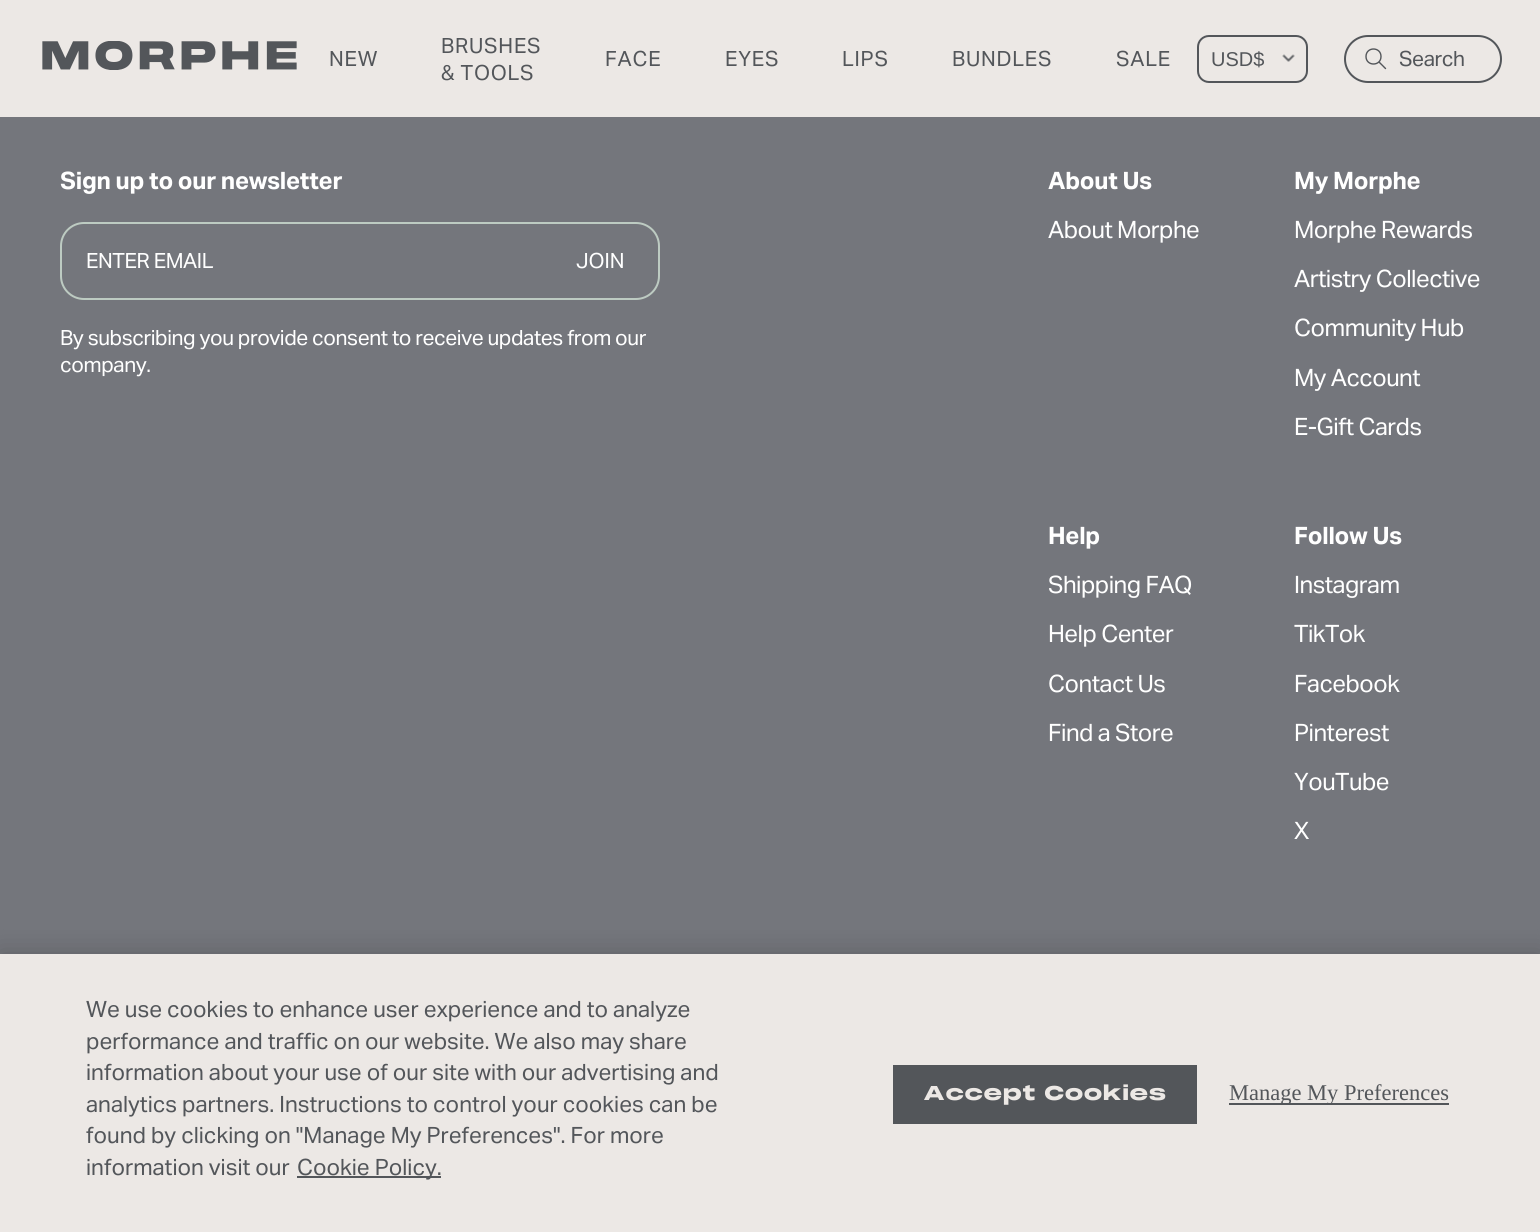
import math
import cairo


def use_color(cr, r, g, b):
  cr.set_source_rgb(r / 255, g / 255, b / 255)

def text(cr, x, y, s, family, size, color, bold=False, italic=False):
  cr.select_font_face(family, cairo.FONT_SLANT_ITALIC if italic else cairo.FONT_SLANT_NORMAL, cairo.FONT_WEIGHT_BOLD if bold else cairo.FONT_WEIGHT_NORMAL)
  cr.set_font_size(size)
  use_color(cr, *color)
  cr.move_to(x, y)
  cr.show_text(s)

def spaced_text(cr, x, y, s, letter, word):
  cr.move_to(x, y)
  for ch in s:
    cr.show_text(ch)
    cr.rel_move_to(letter + word * (ch == ' '), 0)

def box(cr, x, y, w, h, *color):
  use_color(cr, *color)
  cr.rectangle(x, y, w, h)
  cr.fill()

def round_rect(cr, x, y, w, h, r):
  cr.new_sub_path()
  for i, (u, v) in enumerate([(x + w - r, y + h - r), (x + r, y + h - r), (x + r, y + r), (x + w - r, y + r)]):
    cr.arc(u, v, r, i * math.pi / 2, (i + 1) * math.pi / 2)
  cr.close_path()

def shadow(cr, x, y, w, h, r, blur, alpha):
  cr.push_group_with_content(cairo.CONTENT_ALPHA)
  cr.set_operator(cairo.OPERATOR_SOURCE)
  for i in range(15, -16, -2):
    e = blur * i / 6
    if min(w, h) + 2 * e > 0:
      cr.set_source_rgba(0, 0, 0, alpha * math.erfc((i - 1) / 8.5) / 2)
      round_rect(cr, x - e, y - e, w + 2 * e, h + 2 * e, max(0, min(r + e + blur * .6, min(w, h) / 2 + e)))
      cr.fill()
  cr.mask(cr.pop_group())

def picture(cr, path, x, y, w, h):
  cr.save()
  cr.set_source_surface(cairo.ImageSurface.create_from_png(path), x, y)
  cr.rectangle(x, y, w, h)
  cr.fill()
  cr.restore()

def draw(cr):
  use_color(cr, 116, 118, 124)
  cr.paint()
  box(cr, 0, 0, 1540, 117, 236, 232, 229)
  picture(cr, "img_01.png", 42, 41, 255, 29)
  round_rect(cr, 1198, 36, 109, 46, 11)
  use_color(cr, 83, 86, 90)
  cr.stroke()
  picture(cr, "img_02.png", 1282, 54, 13, 8)
  round_rect(cr, 1345, 36, 156, 46, 23)
  cr.stroke()
  cr.new_path()
  cr.move_to(1385.5, 68.5)
  cr.line_to(1379, 62)
  cr.move_to(1381, 56.5)
  cr.curve_to(1381, 66.5, 1366, 66.5, 1366, 56.5)
  cr.curve_to(1366, 46.5, 1381, 46.5, 1381, 56.5)
  cr.close_path()
  cr.set_line_width(1.4)
  cr.set_line_cap(cairo.LINE_CAP_ROUND)
  cr.set_line_join(cairo.LINE_JOIN_ROUND)
  cr.stroke()
  round_rect(cr, 61, 223, 598, 76, 23)
  use_color(cr, 189, 203, 194)
  cr.set_line_width(2)
  cr.set_line_cap(cairo.LINE_CAP_BUTT)
  cr.set_line_join(cairo.LINE_JOIN_MITER)
  cr.stroke()
  use_color(cr, 0, 0, 0)
  shadow(cr, 0, 954, 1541, 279, 0, 13.5, 0.2)
  box(cr, 0, 954, 1540, 278, 236, 232, 229)
  box(cr, 297, 1176, 144, 2, 83, 86, 90)
  box(cr, 893, 1065, 304, 59, 83, 86, 90)
  box(cr, 1229, 1103, 220, 2, 83, 86, 90)
  cr.select_font_face("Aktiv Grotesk")
  cr.set_font_size(21)
  spaced_text(cr, 329, 66, "NEW", 0.75, 0)
  spaced_text(cr, 441, 53, "BRUSHES", 0.75, 0)
  spaced_text(cr, 441, 80, "& TOOLS", 0.75, 0)
  spaced_text(cr, 605, 66, "FACE", 0.75, 0)
  spaced_text(cr, 725, 66, "EYES", 0.75, 0)
  spaced_text(cr, 842, 66, "LIPS", 0.75, 0)
  spaced_text(cr, 952, 66, "BUNDLES", 0.75, 0)
  spaced_text(cr, 1116, 66, "SALE", 0.75, 0)
  text(cr, 1211, 66, "USD$", "Liberation Sans", 20, (83, 86, 90))
  cr.select_font_face("Aktiv Grotesk")
  cr.set_font_size(21)
  spaced_text(cr, 1399, 66, "Search", -0.42, 0)
  cr.select_font_face("Aktiv Grotesk", cairo.FONT_SLANT_NORMAL, cairo.FONT_WEIGHT_BOLD)
  cr.set_font_size(24)
  use_color(cr, 255, 255, 255)
  spaced_text(cr, 60, 189, "Sign up to our newsletter", -0.25, 0)
  cr.select_font_face("Aktiv Grotesk")
  cr.set_font_size(21)
  spaced_text(cr, 86, 268, "ENTER EMAIL", -0.42, 0)
  text(cr, 576, 268, "JOIN", "Aktiv Grotesk", 21, (255, 255, 255))
  spaced_text(cr, 60, 345, "By subscribing you provide consent to receive updates from our", -0.42, 0)
  spaced_text(cr, 60, 372, "company.", -0.42, 0)
  cr.select_font_face("Aktiv Grotesk", cairo.FONT_SLANT_NORMAL, cairo.FONT_WEIGHT_BOLD)
  cr.set_font_size(24)
  spaced_text(cr, 1048, 189, "About Us", -0.25, 0)
  cr.select_font_face("Aktiv Grotesk")
  spaced_text(cr, 1048, 238, "About Morphe", -0.5, 0)
  cr.select_font_face("Aktiv Grotesk", cairo.FONT_SLANT_NORMAL, cairo.FONT_WEIGHT_BOLD)
  spaced_text(cr, 1294, 189, "My Morphe", -0.25, 0)
  cr.select_font_face("Aktiv Grotesk")
  spaced_text(cr, 1294, 238, "Morphe Rewards", -0.5, 0)
  spaced_text(cr, 1294, 287, "Artistry Collective", -0.5, 0)
  spaced_text(cr, 1294, 336, "Community Hub", -0.5, 0)
  spaced_text(cr, 1294, 386, "My Account", -0.5, 0)
  spaced_text(cr, 1294, 435, "E-Gift Cards", -0.5, 0)
  cr.select_font_face("Aktiv Grotesk", cairo.FONT_SLANT_NORMAL, cairo.FONT_WEIGHT_BOLD)
  spaced_text(cr, 1048, 544, "Help", -0.25, 0)
  cr.select_font_face("Aktiv Grotesk")
  spaced_text(cr, 1048, 593, "Shipping FAQ", -0.5, 0)
  spaced_text(cr, 1048, 642, "Help Center", -0.5, 0)
  spaced_text(cr, 1048, 692, "Contact Us", -0.5, 0)
  spaced_text(cr, 1048, 741, "Find a Store", -0.5, 0)
  cr.select_font_face("Aktiv Grotesk", cairo.FONT_SLANT_NORMAL, cairo.FONT_WEIGHT_BOLD)
  spaced_text(cr, 1294, 544, "Follow Us", -0.25, 0)
  cr.select_font_face("Aktiv Grotesk")
  spaced_text(cr, 1294, 593, "Instagram", -0.5, 0)
  spaced_text(cr, 1294, 642, "TikTok", -0.5, 0)
  spaced_text(cr, 1294, 692, "Facebook", -0.5, 0)
  spaced_text(cr, 1294, 741, "Pinterest", -0.5, 0)
  spaced_text(cr, 1294, 790, "YouTube", -0.5, 0)
  spaced_text(cr, 1294, 839, "X", -0.5, 0)
  text(cr, 86, 1017, "We use cookies to enhance user experience and to analyze", "Aktiv Grotesk", 22.5, (83, 86, 90))
  text(cr, 86, 1049, "performance and traffic on our website. We also may share", "Aktiv Grotesk", 22.5, (83, 86, 90))
  text(cr, 86, 1080, "information about your use of our site with our advertising and", "Aktiv Grotesk", 22.5, (83, 86, 90))
  text(cr, 86, 1112, "analytics partners. Instructions to control your cookies can be", "Aktiv Grotesk", 22.5, (83, 86, 90))
  text(cr, 86, 1143, "found by clicking on \"Manage My Preferences\". For more", "Aktiv Grotesk", 22.5, (83, 86, 90))
  text(cr, 86, 1175, "information visit our", "Aktiv Grotesk", 22.5, (83, 86, 90))
  text(cr, 297, 1175, "Cookie Policy.", "Aktiv Grotesk", 22.5, (83, 86, 90))
  cr.select_font_face("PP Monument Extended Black")
  cr.set_font_size(19.5)
  use_color(cr, 236, 232, 229)
  spaced_text(cr, 923, 1100, "Accept Cookies", 0.5, 0)
  text(cr, 1229, 1100, "Manage My Preferences", "Liberation Serif", 22.5, (83, 86, 90))


surface = cairo.ImageSurface(cairo.FORMAT_RGB24, 1540, 1232)
cr = cairo.Context(surface)
options = cairo.FontOptions()
options.set_hint_metrics(cairo.HINT_METRICS_OFF)
options.set_hint_style(cairo.HINT_STYLE_NONE)
cr.set_font_options(options)
cr.set_miter_limit(4)
draw(cr)
surface.write_to_png("out.png")
